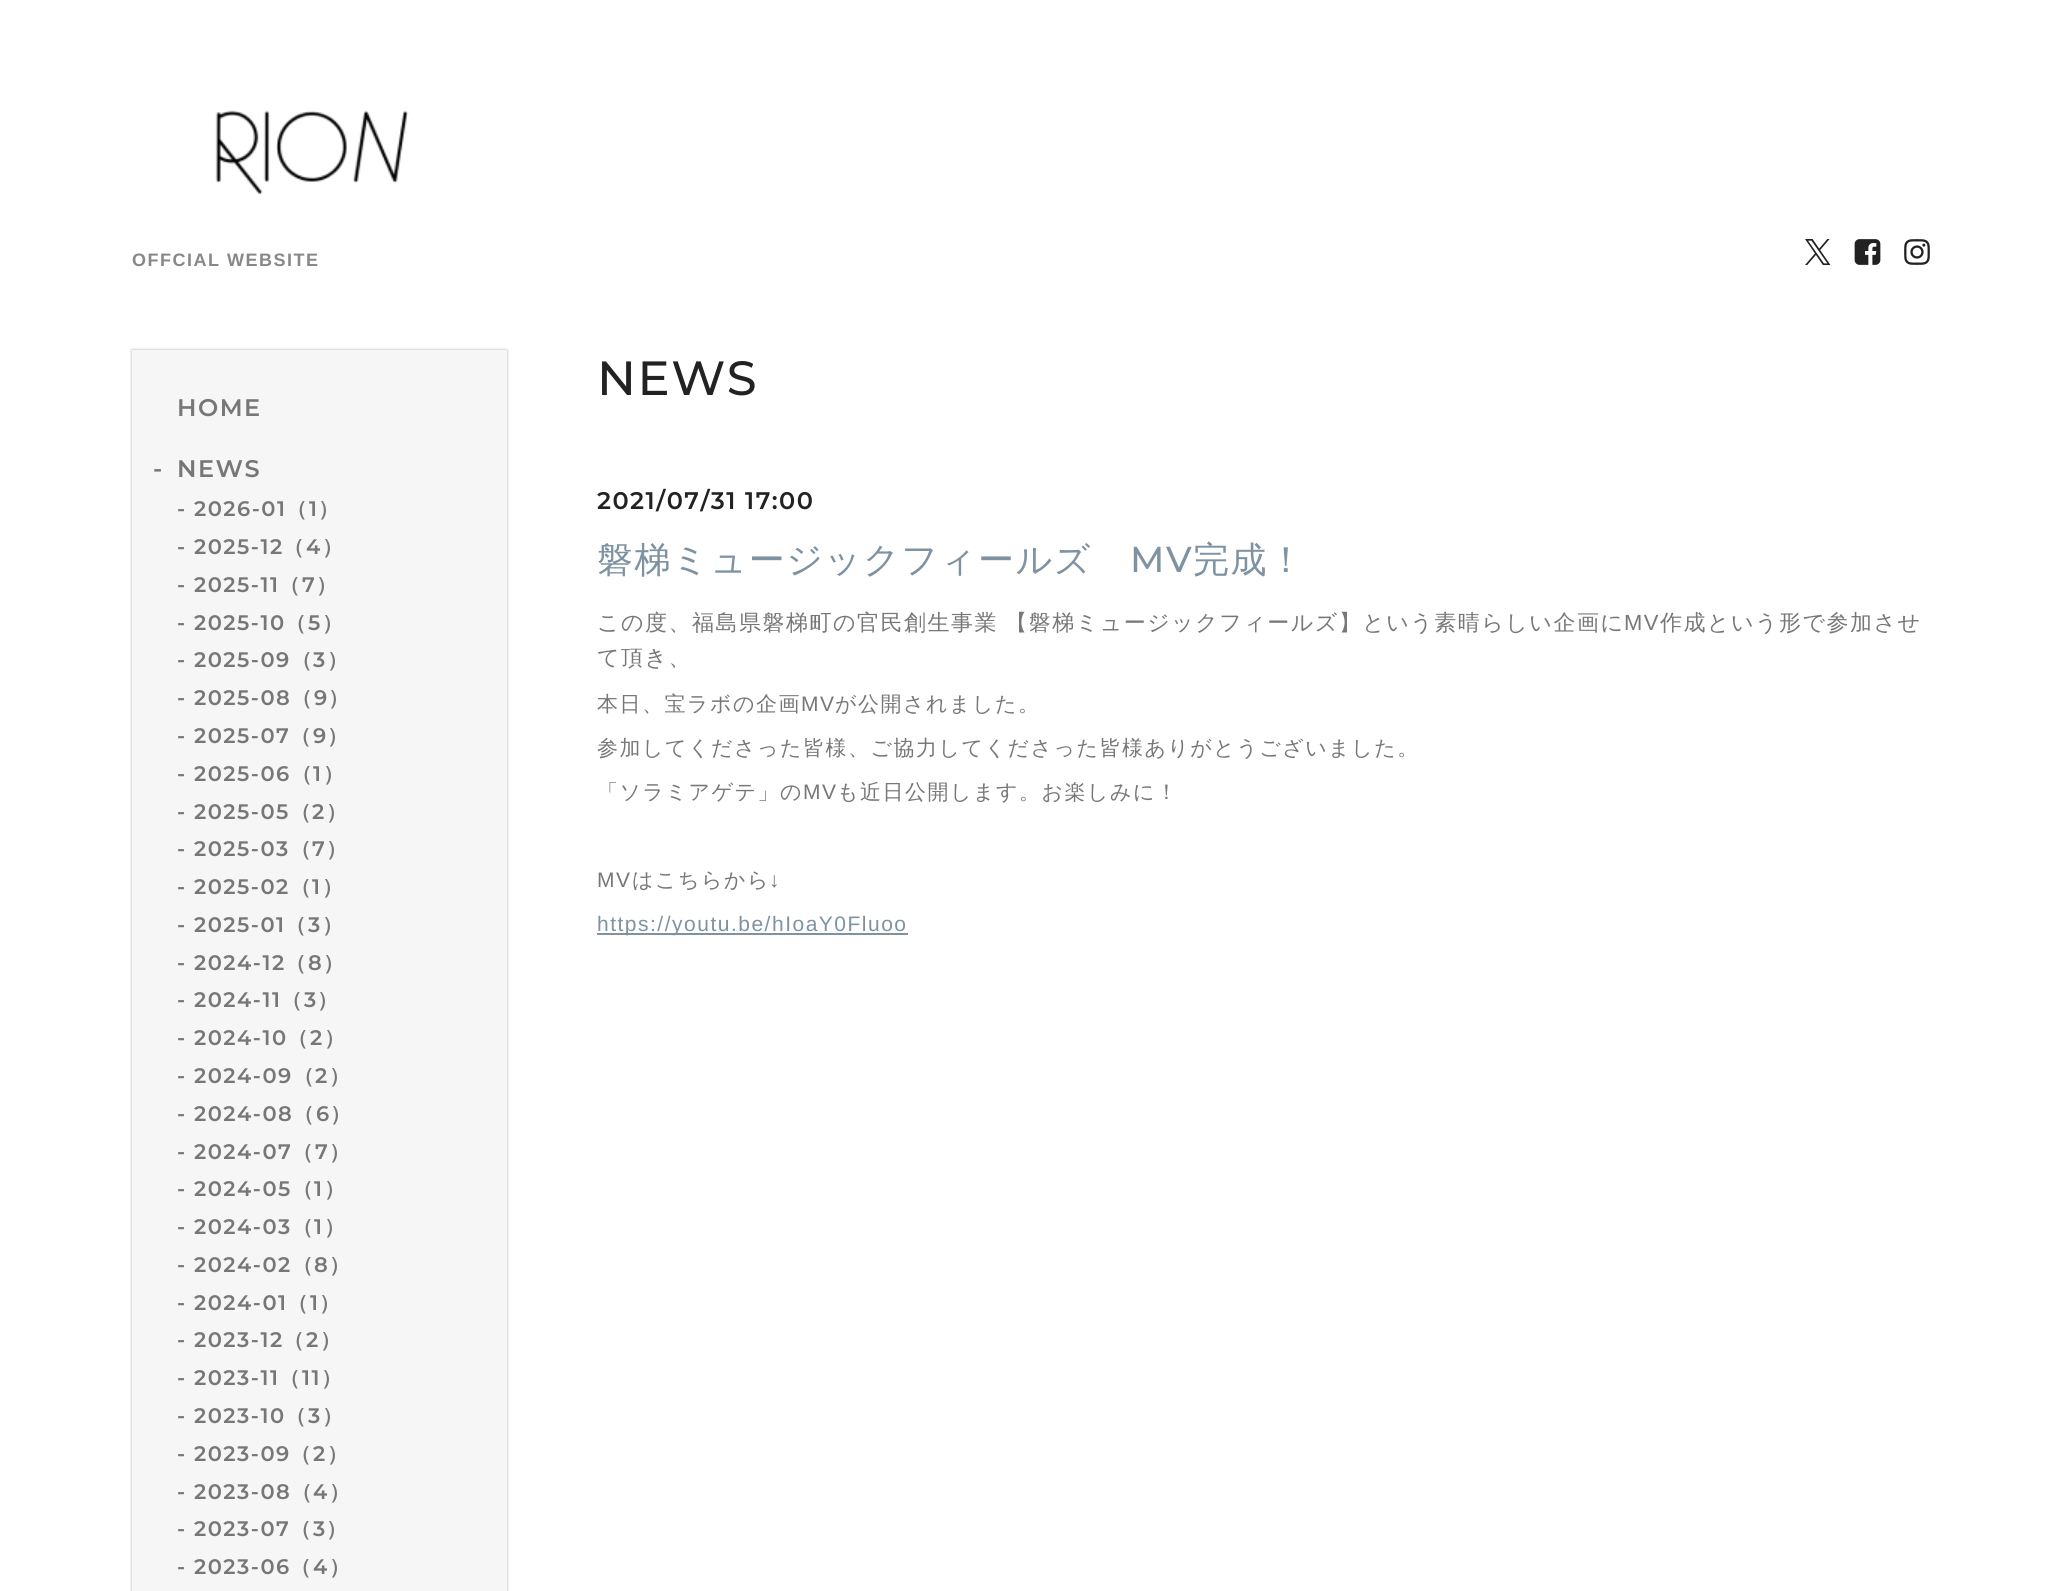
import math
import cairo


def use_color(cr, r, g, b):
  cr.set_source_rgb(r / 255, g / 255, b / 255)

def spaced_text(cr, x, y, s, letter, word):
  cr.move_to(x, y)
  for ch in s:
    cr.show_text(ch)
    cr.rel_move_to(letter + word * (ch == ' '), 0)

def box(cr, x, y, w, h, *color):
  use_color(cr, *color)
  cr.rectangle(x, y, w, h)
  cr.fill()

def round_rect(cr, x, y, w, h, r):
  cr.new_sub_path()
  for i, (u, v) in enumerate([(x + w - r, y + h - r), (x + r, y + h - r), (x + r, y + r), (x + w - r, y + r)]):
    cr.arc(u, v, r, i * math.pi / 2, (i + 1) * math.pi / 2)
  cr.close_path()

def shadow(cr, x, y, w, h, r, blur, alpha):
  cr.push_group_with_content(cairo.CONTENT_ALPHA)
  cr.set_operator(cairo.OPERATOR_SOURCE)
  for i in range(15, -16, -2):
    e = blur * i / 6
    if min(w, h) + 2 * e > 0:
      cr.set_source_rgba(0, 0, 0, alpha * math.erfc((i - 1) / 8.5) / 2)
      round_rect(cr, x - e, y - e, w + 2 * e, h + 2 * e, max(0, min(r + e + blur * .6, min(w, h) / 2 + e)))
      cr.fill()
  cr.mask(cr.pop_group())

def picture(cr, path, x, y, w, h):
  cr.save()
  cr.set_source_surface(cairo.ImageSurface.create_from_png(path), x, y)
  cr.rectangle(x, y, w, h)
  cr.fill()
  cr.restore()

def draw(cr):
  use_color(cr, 255, 255, 255)
  cr.paint()
  picture(cr, "img_01.png", 215, 110, 194, 85)
  picture(cr, "img_02.png", 1805, 239, 26, 26)
  picture(cr, "img_03.png", 1854, 239, 27, 26)
  picture(cr, "img_04.png", 1904, 239, 26, 26)
  use_color(cr, 0, 0, 0)
  shadow(cr, 132, 350, 375, 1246, 0, 1.5, 0.3)
  box(cr, 132, 350, 375, 1241, 246, 246, 246)
  box(cr, 597, 933, 311, 2, 126, 146, 161)
  cr.select_font_face("Liberation Sans", cairo.FONT_SLANT_NORMAL, cairo.FONT_WEIGHT_BOLD)
  cr.set_font_size(18)
  use_color(cr, 136, 136, 136)
  spaced_text(cr, 132, 266, "OFFCIAL WEBSITE", 1.5, 0)
  cr.select_font_face("Montserrat SemiBold")
  cr.set_font_size(24)
  use_color(cr, 119, 119, 119)
  spaced_text(cr, 177, 416, "HOME", 1.5, 0)
  spaced_text(cr, 153, 477, "-", 1.5, 0)
  spaced_text(cr, 177, 477, "NEWS", 1.5, 0)
  cr.set_font_size(21)
  spaced_text(cr, 177, 516, "-", 1.5, 0)
  spaced_text(cr, 194, 516, "2026-01", 1.5, 0)
  cr.select_font_face("WenQuanYi Zen Hei", cairo.FONT_SLANT_NORMAL, cairo.FONT_WEIGHT_BOLD)
  spaced_text(cr, 286, 516, "（", 1.5, 0)
  cr.select_font_face("Montserrat SemiBold")
  spaced_text(cr, 309, 516, "1", 1.5, 0)
  cr.select_font_face("WenQuanYi Zen Hei", cairo.FONT_SLANT_NORMAL, cairo.FONT_WEIGHT_BOLD)
  spaced_text(cr, 318, 516, "）", 1.5, 0)
  cr.select_font_face("Montserrat SemiBold")
  spaced_text(cr, 177, 554, "-", 1.5, 0)
  spaced_text(cr, 194, 554, "2025-12", 1.5, 0)
  cr.select_font_face("WenQuanYi Zen Hei", cairo.FONT_SLANT_NORMAL, cairo.FONT_WEIGHT_BOLD)
  spaced_text(cr, 283, 554, "（", 1.5, 0)
  cr.select_font_face("Montserrat SemiBold")
  spaced_text(cr, 306, 554, "4", 1.5, 0)
  cr.select_font_face("WenQuanYi Zen Hei", cairo.FONT_SLANT_NORMAL, cairo.FONT_WEIGHT_BOLD)
  spaced_text(cr, 322, 554, "）", 1.5, 0)
  cr.select_font_face("Montserrat SemiBold")
  spaced_text(cr, 177, 592, "-", 1.5, 0)
  spaced_text(cr, 194, 592, "2025-11", 1.5, 0)
  cr.select_font_face("WenQuanYi Zen Hei", cairo.FONT_SLANT_NORMAL, cairo.FONT_WEIGHT_BOLD)
  spaced_text(cr, 279, 592, "（", 1.5, 0)
  cr.select_font_face("Montserrat SemiBold")
  spaced_text(cr, 302, 592, "7", 1.5, 0)
  cr.select_font_face("WenQuanYi Zen Hei", cairo.FONT_SLANT_NORMAL, cairo.FONT_WEIGHT_BOLD)
  spaced_text(cr, 316, 592, "）", 1.5, 0)
  cr.select_font_face("Montserrat SemiBold")
  spaced_text(cr, 177, 630, "-", 1.5, 0)
  spaced_text(cr, 194, 630, "2025-10", 1.5, 0)
  cr.select_font_face("WenQuanYi Zen Hei", cairo.FONT_SLANT_NORMAL, cairo.FONT_WEIGHT_BOLD)
  spaced_text(cr, 285, 630, "（", 1.5, 0)
  cr.select_font_face("Montserrat SemiBold")
  spaced_text(cr, 308, 630, "5", 1.5, 0)
  cr.select_font_face("WenQuanYi Zen Hei", cairo.FONT_SLANT_NORMAL, cairo.FONT_WEIGHT_BOLD)
  spaced_text(cr, 322, 630, "）", 1.5, 0)
  cr.select_font_face("Montserrat SemiBold")
  spaced_text(cr, 177, 667, "-", 1.5, 0)
  spaced_text(cr, 194, 667, "2025-09", 1.5, 0)
  cr.select_font_face("WenQuanYi Zen Hei", cairo.FONT_SLANT_NORMAL, cairo.FONT_WEIGHT_BOLD)
  spaced_text(cr, 291, 667, "（", 1.5, 0)
  cr.select_font_face("Montserrat SemiBold")
  spaced_text(cr, 313, 667, "3", 1.5, 0)
  cr.select_font_face("WenQuanYi Zen Hei", cairo.FONT_SLANT_NORMAL, cairo.FONT_WEIGHT_BOLD)
  spaced_text(cr, 327, 667, "）", 1.5, 0)
  cr.select_font_face("Montserrat SemiBold")
  spaced_text(cr, 177, 705, "-", 1.5, 0)
  spaced_text(cr, 194, 705, "2025-08", 1.5, 0)
  cr.select_font_face("WenQuanYi Zen Hei", cairo.FONT_SLANT_NORMAL, cairo.FONT_WEIGHT_BOLD)
  spaced_text(cr, 291, 705, "（", 1.5, 0)
  cr.select_font_face("Montserrat SemiBold")
  spaced_text(cr, 314, 705, "9", 1.5, 0)
  cr.select_font_face("WenQuanYi Zen Hei", cairo.FONT_SLANT_NORMAL, cairo.FONT_WEIGHT_BOLD)
  spaced_text(cr, 328, 705, "）", 1.5, 0)
  cr.select_font_face("Montserrat SemiBold")
  spaced_text(cr, 177, 743, "-", 1.5, 0)
  spaced_text(cr, 194, 743, "2025-07", 1.5, 0)
  cr.select_font_face("WenQuanYi Zen Hei", cairo.FONT_SLANT_NORMAL, cairo.FONT_WEIGHT_BOLD)
  spaced_text(cr, 290, 743, "（", 1.5, 0)
  cr.select_font_face("Montserrat SemiBold")
  spaced_text(cr, 313, 743, "9", 1.5, 0)
  cr.select_font_face("WenQuanYi Zen Hei", cairo.FONT_SLANT_NORMAL, cairo.FONT_WEIGHT_BOLD)
  spaced_text(cr, 327, 743, "）", 1.5, 0)
  cr.select_font_face("Montserrat SemiBold")
  spaced_text(cr, 177, 781, "-", 1.5, 0)
  spaced_text(cr, 194, 781, "2025-06", 1.5, 0)
  cr.select_font_face("WenQuanYi Zen Hei", cairo.FONT_SLANT_NORMAL, cairo.FONT_WEIGHT_BOLD)
  spaced_text(cr, 291, 781, "（", 1.5, 0)
  cr.select_font_face("Montserrat SemiBold")
  spaced_text(cr, 313, 781, "1", 1.5, 0)
  cr.select_font_face("WenQuanYi Zen Hei", cairo.FONT_SLANT_NORMAL, cairo.FONT_WEIGHT_BOLD)
  spaced_text(cr, 323, 781, "）", 1.5, 0)
  cr.select_font_face("Montserrat SemiBold")
  spaced_text(cr, 177, 819, "-", 1.5, 0)
  spaced_text(cr, 194, 819, "2025-05", 1.5, 0)
  cr.select_font_face("WenQuanYi Zen Hei", cairo.FONT_SLANT_NORMAL, cairo.FONT_WEIGHT_BOLD)
  spaced_text(cr, 290, 819, "（", 1.5, 0)
  cr.select_font_face("Montserrat SemiBold")
  spaced_text(cr, 312, 819, "2", 1.5, 0)
  cr.select_font_face("WenQuanYi Zen Hei", cairo.FONT_SLANT_NORMAL, cairo.FONT_WEIGHT_BOLD)
  spaced_text(cr, 326, 819, "）", 1.5, 0)
  cr.select_font_face("Montserrat SemiBold")
  spaced_text(cr, 177, 856, "-", 1.5, 0)
  spaced_text(cr, 194, 856, "2025-03", 1.5, 0)
  cr.select_font_face("WenQuanYi Zen Hei", cairo.FONT_SLANT_NORMAL, cairo.FONT_WEIGHT_BOLD)
  spaced_text(cr, 290, 856, "（", 1.5, 0)
  cr.select_font_face("Montserrat SemiBold")
  spaced_text(cr, 312, 856, "7", 1.5, 0)
  cr.select_font_face("WenQuanYi Zen Hei", cairo.FONT_SLANT_NORMAL, cairo.FONT_WEIGHT_BOLD)
  spaced_text(cr, 326, 856, "）", 1.5, 0)
  cr.select_font_face("Montserrat SemiBold")
  spaced_text(cr, 177, 894, "-", 1.5, 0)
  spaced_text(cr, 194, 894, "2025-02", 1.5, 0)
  cr.select_font_face("WenQuanYi Zen Hei", cairo.FONT_SLANT_NORMAL, cairo.FONT_WEIGHT_BOLD)
  spaced_text(cr, 290, 894, "（", 1.5, 0)
  cr.select_font_face("Montserrat SemiBold")
  spaced_text(cr, 312, 894, "1", 1.5, 0)
  cr.select_font_face("WenQuanYi Zen Hei", cairo.FONT_SLANT_NORMAL, cairo.FONT_WEIGHT_BOLD)
  spaced_text(cr, 322, 894, "）", 1.5, 0)
  cr.select_font_face("Montserrat SemiBold")
  spaced_text(cr, 177, 932, "-", 1.5, 0)
  spaced_text(cr, 194, 932, "2025-01", 1.5, 0)
  cr.select_font_face("WenQuanYi Zen Hei", cairo.FONT_SLANT_NORMAL, cairo.FONT_WEIGHT_BOLD)
  spaced_text(cr, 285, 932, "（", 1.5, 0)
  cr.select_font_face("Montserrat SemiBold")
  spaced_text(cr, 308, 932, "3", 1.5, 0)
  cr.select_font_face("WenQuanYi Zen Hei", cairo.FONT_SLANT_NORMAL, cairo.FONT_WEIGHT_BOLD)
  spaced_text(cr, 322, 932, "）", 1.5, 0)
  cr.select_font_face("Montserrat SemiBold")
  spaced_text(cr, 177, 970, "-", 1.5, 0)
  spaced_text(cr, 194, 970, "2024-12", 1.5, 0)
  cr.select_font_face("WenQuanYi Zen Hei", cairo.FONT_SLANT_NORMAL, cairo.FONT_WEIGHT_BOLD)
  spaced_text(cr, 285, 970, "（", 1.5, 0)
  cr.select_font_face("Montserrat SemiBold")
  spaced_text(cr, 308, 970, "8", 1.5, 0)
  cr.select_font_face("WenQuanYi Zen Hei", cairo.FONT_SLANT_NORMAL, cairo.FONT_WEIGHT_BOLD)
  spaced_text(cr, 323, 970, "）", 1.5, 0)
  cr.select_font_face("Montserrat SemiBold")
  spaced_text(cr, 177, 1007, "-", 1.5, 0)
  spaced_text(cr, 194, 1007, "2024-11", 1.5, 0)
  cr.select_font_face("WenQuanYi Zen Hei", cairo.FONT_SLANT_NORMAL, cairo.FONT_WEIGHT_BOLD)
  spaced_text(cr, 281, 1007, "（", 1.5, 0)
  cr.select_font_face("Montserrat SemiBold")
  spaced_text(cr, 304, 1007, "3", 1.5, 0)
  cr.select_font_face("WenQuanYi Zen Hei", cairo.FONT_SLANT_NORMAL, cairo.FONT_WEIGHT_BOLD)
  spaced_text(cr, 317, 1007, "）", 1.5, 0)
  cr.select_font_face("Montserrat SemiBold")
  spaced_text(cr, 177, 1045, "-", 1.5, 0)
  spaced_text(cr, 194, 1045, "2024-10", 1.5, 0)
  cr.select_font_face("WenQuanYi Zen Hei", cairo.FONT_SLANT_NORMAL, cairo.FONT_WEIGHT_BOLD)
  spaced_text(cr, 287, 1045, "（", 1.5, 0)
  cr.select_font_face("Montserrat SemiBold")
  spaced_text(cr, 310, 1045, "2", 1.5, 0)
  cr.select_font_face("WenQuanYi Zen Hei", cairo.FONT_SLANT_NORMAL, cairo.FONT_WEIGHT_BOLD)
  spaced_text(cr, 324, 1045, "）", 1.5, 0)
  cr.select_font_face("Montserrat SemiBold")
  spaced_text(cr, 177, 1083, "-", 1.5, 0)
  spaced_text(cr, 194, 1083, "2024-09", 1.5, 0)
  cr.select_font_face("WenQuanYi Zen Hei", cairo.FONT_SLANT_NORMAL, cairo.FONT_WEIGHT_BOLD)
  spaced_text(cr, 293, 1083, "（", 1.5, 0)
  cr.select_font_face("Montserrat SemiBold")
  spaced_text(cr, 315, 1083, "2", 1.5, 0)
  cr.select_font_face("WenQuanYi Zen Hei", cairo.FONT_SLANT_NORMAL, cairo.FONT_WEIGHT_BOLD)
  spaced_text(cr, 329, 1083, "）", 1.5, 0)
  cr.select_font_face("Montserrat SemiBold")
  spaced_text(cr, 177, 1121, "-", 1.5, 0)
  spaced_text(cr, 194, 1121, "2024-08", 1.5, 0)
  cr.select_font_face("WenQuanYi Zen Hei", cairo.FONT_SLANT_NORMAL, cairo.FONT_WEIGHT_BOLD)
  spaced_text(cr, 293, 1121, "（", 1.5, 0)
  cr.select_font_face("Montserrat SemiBold")
  spaced_text(cr, 316, 1121, "6", 1.5, 0)
  cr.select_font_face("WenQuanYi Zen Hei", cairo.FONT_SLANT_NORMAL, cairo.FONT_WEIGHT_BOLD)
  spaced_text(cr, 330, 1121, "）", 1.5, 0)
  cr.select_font_face("Montserrat SemiBold")
  spaced_text(cr, 177, 1159, "-", 1.5, 0)
  spaced_text(cr, 194, 1159, "2024-07", 1.5, 0)
  cr.select_font_face("WenQuanYi Zen Hei", cairo.FONT_SLANT_NORMAL, cairo.FONT_WEIGHT_BOLD)
  spaced_text(cr, 292, 1159, "（", 1.5, 0)
  cr.select_font_face("Montserrat SemiBold")
  spaced_text(cr, 315, 1159, "7", 1.5, 0)
  cr.select_font_face("WenQuanYi Zen Hei", cairo.FONT_SLANT_NORMAL, cairo.FONT_WEIGHT_BOLD)
  spaced_text(cr, 329, 1159, "）", 1.5, 0)
  cr.select_font_face("Montserrat SemiBold")
  spaced_text(cr, 177, 1196, "-", 1.5, 0)
  spaced_text(cr, 194, 1196, "2024-05", 1.5, 0)
  cr.select_font_face("WenQuanYi Zen Hei", cairo.FONT_SLANT_NORMAL, cairo.FONT_WEIGHT_BOLD)
  spaced_text(cr, 292, 1196, "（", 1.5, 0)
  cr.select_font_face("Montserrat SemiBold")
  spaced_text(cr, 314, 1196, "1", 1.5, 0)
  cr.select_font_face("WenQuanYi Zen Hei", cairo.FONT_SLANT_NORMAL, cairo.FONT_WEIGHT_BOLD)
  spaced_text(cr, 324, 1196, "）", 1.5, 0)
  cr.select_font_face("Montserrat SemiBold")
  spaced_text(cr, 177, 1234, "-", 1.5, 0)
  spaced_text(cr, 194, 1234, "2024-03", 1.5, 0)
  cr.select_font_face("WenQuanYi Zen Hei", cairo.FONT_SLANT_NORMAL, cairo.FONT_WEIGHT_BOLD)
  spaced_text(cr, 292, 1234, "（", 1.5, 0)
  cr.select_font_face("Montserrat SemiBold")
  spaced_text(cr, 314, 1234, "1", 1.5, 0)
  cr.select_font_face("WenQuanYi Zen Hei", cairo.FONT_SLANT_NORMAL, cairo.FONT_WEIGHT_BOLD)
  spaced_text(cr, 324, 1234, "）", 1.5, 0)
  cr.select_font_face("Montserrat SemiBold")
  spaced_text(cr, 177, 1272, "-", 1.5, 0)
  spaced_text(cr, 194, 1272, "2024-02", 1.5, 0)
  cr.select_font_face("WenQuanYi Zen Hei", cairo.FONT_SLANT_NORMAL, cairo.FONT_WEIGHT_BOLD)
  spaced_text(cr, 292, 1272, "（", 1.5, 0)
  cr.select_font_face("Montserrat SemiBold")
  spaced_text(cr, 314, 1272, "8", 1.5, 0)
  cr.select_font_face("WenQuanYi Zen Hei", cairo.FONT_SLANT_NORMAL, cairo.FONT_WEIGHT_BOLD)
  spaced_text(cr, 329, 1272, "）", 1.5, 0)
  cr.select_font_face("Montserrat SemiBold")
  spaced_text(cr, 177, 1310, "-", 1.5, 0)
  spaced_text(cr, 194, 1310, "2024-01", 1.5, 0)
  cr.select_font_face("WenQuanYi Zen Hei", cairo.FONT_SLANT_NORMAL, cairo.FONT_WEIGHT_BOLD)
  spaced_text(cr, 287, 1310, "（", 1.5, 0)
  cr.select_font_face("Montserrat SemiBold")
  spaced_text(cr, 310, 1310, "1", 1.5, 0)
  cr.select_font_face("WenQuanYi Zen Hei", cairo.FONT_SLANT_NORMAL, cairo.FONT_WEIGHT_BOLD)
  spaced_text(cr, 319, 1310, "）", 1.5, 0)
  cr.select_font_face("Montserrat SemiBold")
  spaced_text(cr, 177, 1347, "-", 1.5, 0)
  spaced_text(cr, 194, 1347, "2023-12", 1.5, 0)
  cr.select_font_face("WenQuanYi Zen Hei", cairo.FONT_SLANT_NORMAL, cairo.FONT_WEIGHT_BOLD)
  spaced_text(cr, 283, 1347, "（", 1.5, 0)
  cr.select_font_face("Montserrat SemiBold")
  spaced_text(cr, 306, 1347, "2", 1.5, 0)
  cr.select_font_face("WenQuanYi Zen Hei", cairo.FONT_SLANT_NORMAL, cairo.FONT_WEIGHT_BOLD)
  spaced_text(cr, 320, 1347, "）", 1.5, 0)
  cr.select_font_face("Montserrat SemiBold")
  spaced_text(cr, 177, 1385, "-", 1.5, 0)
  spaced_text(cr, 194, 1385, "2023-11", 1.5, 0)
  cr.select_font_face("WenQuanYi Zen Hei", cairo.FONT_SLANT_NORMAL, cairo.FONT_WEIGHT_BOLD)
  spaced_text(cr, 279, 1385, "（", 1.5, 0)
  cr.select_font_face("Montserrat SemiBold")
  spaced_text(cr, 302, 1385, "11", 1.5, 0)
  cr.select_font_face("WenQuanYi Zen Hei", cairo.FONT_SLANT_NORMAL, cairo.FONT_WEIGHT_BOLD)
  spaced_text(cr, 321, 1385, "）", 1.5, 0)
  cr.select_font_face("Montserrat SemiBold")
  spaced_text(cr, 177, 1423, "-", 1.5, 0)
  spaced_text(cr, 194, 1423, "2023-10", 1.5, 0)
  cr.select_font_face("WenQuanYi Zen Hei", cairo.FONT_SLANT_NORMAL, cairo.FONT_WEIGHT_BOLD)
  spaced_text(cr, 285, 1423, "（", 1.5, 0)
  cr.select_font_face("Montserrat SemiBold")
  spaced_text(cr, 308, 1423, "3", 1.5, 0)
  cr.select_font_face("WenQuanYi Zen Hei", cairo.FONT_SLANT_NORMAL, cairo.FONT_WEIGHT_BOLD)
  spaced_text(cr, 322, 1423, "）", 1.5, 0)
  cr.select_font_face("Montserrat SemiBold")
  spaced_text(cr, 177, 1461, "-", 1.5, 0)
  spaced_text(cr, 194, 1461, "2023-09", 1.5, 0)
  cr.select_font_face("WenQuanYi Zen Hei", cairo.FONT_SLANT_NORMAL, cairo.FONT_WEIGHT_BOLD)
  spaced_text(cr, 290, 1461, "（", 1.5, 0)
  cr.select_font_face("Montserrat SemiBold")
  spaced_text(cr, 313, 1461, "2", 1.5, 0)
  cr.select_font_face("WenQuanYi Zen Hei", cairo.FONT_SLANT_NORMAL, cairo.FONT_WEIGHT_BOLD)
  spaced_text(cr, 327, 1461, "）", 1.5, 0)
  cr.select_font_face("Montserrat SemiBold")
  spaced_text(cr, 177, 1499, "-", 1.5, 0)
  spaced_text(cr, 194, 1499, "2023-08", 1.5, 0)
  cr.select_font_face("WenQuanYi Zen Hei", cairo.FONT_SLANT_NORMAL, cairo.FONT_WEIGHT_BOLD)
  spaced_text(cr, 291, 1499, "（", 1.5, 0)
  cr.select_font_face("Montserrat SemiBold")
  spaced_text(cr, 313, 1499, "4", 1.5, 0)
  cr.select_font_face("WenQuanYi Zen Hei", cairo.FONT_SLANT_NORMAL, cairo.FONT_WEIGHT_BOLD)
  spaced_text(cr, 329, 1499, "）", 1.5, 0)
  cr.select_font_face("Montserrat SemiBold")
  spaced_text(cr, 177, 1536, "-", 1.5, 0)
  spaced_text(cr, 194, 1536, "2023-07", 1.5, 0)
  cr.select_font_face("WenQuanYi Zen Hei", cairo.FONT_SLANT_NORMAL, cairo.FONT_WEIGHT_BOLD)
  spaced_text(cr, 290, 1536, "（", 1.5, 0)
  cr.select_font_face("Montserrat SemiBold")
  spaced_text(cr, 313, 1536, "3", 1.5, 0)
  cr.select_font_face("WenQuanYi Zen Hei", cairo.FONT_SLANT_NORMAL, cairo.FONT_WEIGHT_BOLD)
  spaced_text(cr, 326, 1536, "）", 1.5, 0)
  cr.select_font_face("Montserrat SemiBold")
  spaced_text(cr, 177, 1574, "-", 1.5, 0)
  spaced_text(cr, 194, 1574, "2023-06", 1.5, 0)
  cr.select_font_face("WenQuanYi Zen Hei", cairo.FONT_SLANT_NORMAL, cairo.FONT_WEIGHT_BOLD)
  spaced_text(cr, 290, 1574, "（", 1.5, 0)
  cr.select_font_face("Montserrat SemiBold")
  spaced_text(cr, 313, 1574, "4", 1.5, 0)
  cr.select_font_face("WenQuanYi Zen Hei", cairo.FONT_SLANT_NORMAL, cairo.FONT_WEIGHT_BOLD)
  spaced_text(cr, 329, 1574, "）", 1.5, 0)
  cr.select_font_face("Montserrat Medium")
  cr.set_font_size(48)
  use_color(cr, 34, 34, 34)
  spaced_text(cr, 597, 395, "NEWS", 1.5, 0)
  cr.select_font_face("Montserrat SemiBold")
  cr.set_font_size(24)
  spaced_text(cr, 597, 509, "2021/07/31 17:00", 1.5, 0)
  cr.select_font_face("WenQuanYi Zen Hei Medium")
  cr.set_font_size(36)
  use_color(cr, 126, 146, 161)
  spaced_text(cr, 597, 572, "磐梯ミュージックフィールズ", 1.5, 0)
  cr.select_font_face("Montserrat Medium")
  spaced_text(cr, 1130, 572, "MV", 1.5, 0)
  cr.select_font_face("WenQuanYi Zen Hei Medium")
  spaced_text(cr, 1193, 572, "完成！", 1.5, 0)
  cr.set_font_size(22)
  use_color(cr, 119, 119, 119)
  spaced_text(cr, 597, 630, "この度、福島県磐梯町の官民創生事業 【磐梯ミュージックフィールズ】という素晴らしい企画に", 1.5, -1)
  cr.select_font_face("Liberation Sans")
  spaced_text(cr, 1624, 630, "MV", 1.5, 0)
  cr.select_font_face("WenQuanYi Zen Hei Medium")
  spaced_text(cr, 1660, 630, "作成という形で参加させ", 1.5, 0)
  spaced_text(cr, 597, 665, "て頂き、", 1.5, 0)
  cr.set_font_size(21)
  spaced_text(cr, 597, 711, "本日、宝ラボの企画", 1.5, 0)
  cr.select_font_face("Liberation Sans")
  spaced_text(cr, 801, 711, "MV", 1.5, 0)
  cr.select_font_face("WenQuanYi Zen Hei Medium")
  spaced_text(cr, 835, 711, "が公開されました。", 1.5, 0)
  spaced_text(cr, 597, 755, "参加してくださった皆様、ご協力してくださった皆様ありがとうございました。", 1.5, 0)
  spaced_text(cr, 597, 799, "「ソラミアゲテ」の", 1.5, 0)
  cr.select_font_face("Liberation Sans")
  spaced_text(cr, 803, 799, "MV", 1.5, 0)
  cr.select_font_face("WenQuanYi Zen Hei Medium")
  spaced_text(cr, 837, 799, "も近日公開します。お楽しみに！", 1.5, 0)
  cr.select_font_face("Liberation Sans")
  spaced_text(cr, 597, 887, "MV", 1.5, 0)
  cr.select_font_face("WenQuanYi Zen Hei Medium")
  spaced_text(cr, 632, 887, "はこちらから", 1.5, 0)
  cr.select_font_face("Liberation Sans")
  spaced_text(cr, 769, 887, "↓", 1.5, 0)
  use_color(cr, 126, 146, 161)
  spaced_text(cr, 597, 931, "https://youtu.be/hIoaY0Fluoo", 1.5, 0)


surface = cairo.ImageSurface(cairo.FORMAT_RGB24, 2064, 1591)
cr = cairo.Context(surface)
options = cairo.FontOptions()
options.set_hint_metrics(cairo.HINT_METRICS_OFF)
options.set_hint_style(cairo.HINT_STYLE_NONE)
cr.set_font_options(options)
cr.set_miter_limit(4)
draw(cr)
surface.write_to_png("out.png")
